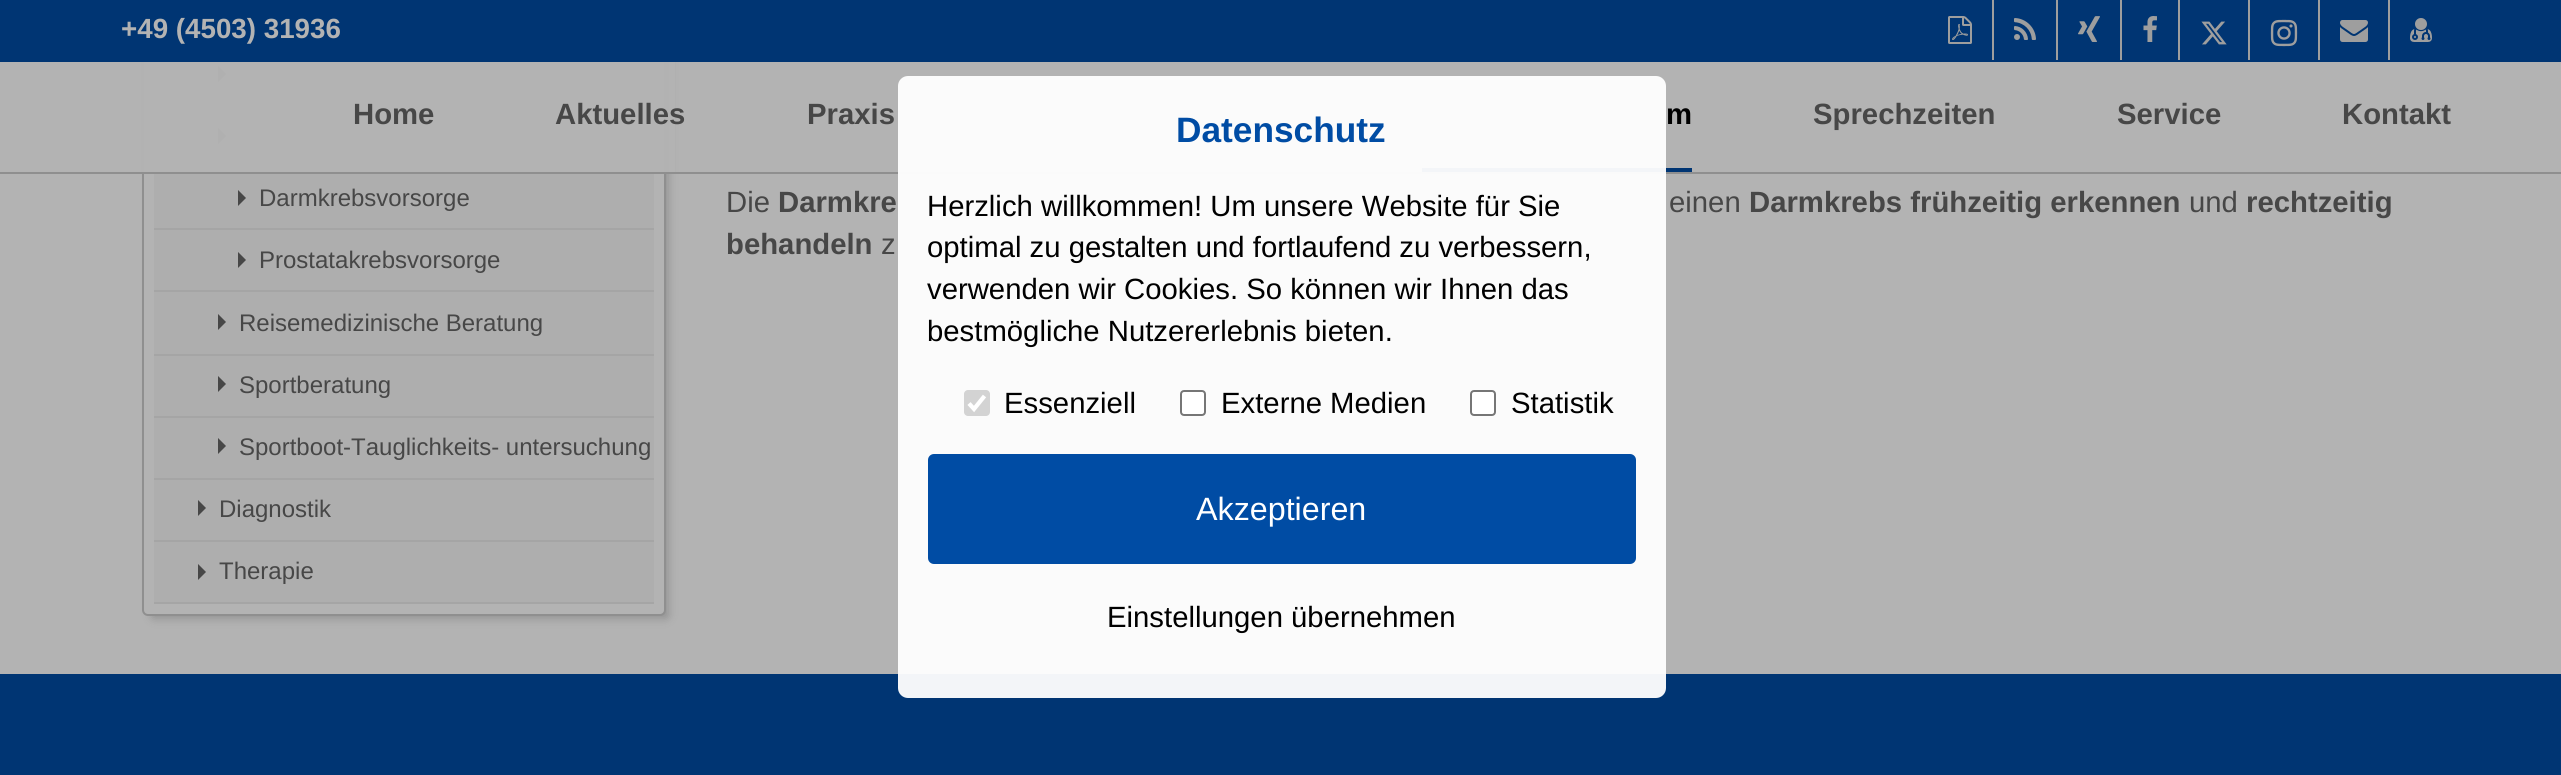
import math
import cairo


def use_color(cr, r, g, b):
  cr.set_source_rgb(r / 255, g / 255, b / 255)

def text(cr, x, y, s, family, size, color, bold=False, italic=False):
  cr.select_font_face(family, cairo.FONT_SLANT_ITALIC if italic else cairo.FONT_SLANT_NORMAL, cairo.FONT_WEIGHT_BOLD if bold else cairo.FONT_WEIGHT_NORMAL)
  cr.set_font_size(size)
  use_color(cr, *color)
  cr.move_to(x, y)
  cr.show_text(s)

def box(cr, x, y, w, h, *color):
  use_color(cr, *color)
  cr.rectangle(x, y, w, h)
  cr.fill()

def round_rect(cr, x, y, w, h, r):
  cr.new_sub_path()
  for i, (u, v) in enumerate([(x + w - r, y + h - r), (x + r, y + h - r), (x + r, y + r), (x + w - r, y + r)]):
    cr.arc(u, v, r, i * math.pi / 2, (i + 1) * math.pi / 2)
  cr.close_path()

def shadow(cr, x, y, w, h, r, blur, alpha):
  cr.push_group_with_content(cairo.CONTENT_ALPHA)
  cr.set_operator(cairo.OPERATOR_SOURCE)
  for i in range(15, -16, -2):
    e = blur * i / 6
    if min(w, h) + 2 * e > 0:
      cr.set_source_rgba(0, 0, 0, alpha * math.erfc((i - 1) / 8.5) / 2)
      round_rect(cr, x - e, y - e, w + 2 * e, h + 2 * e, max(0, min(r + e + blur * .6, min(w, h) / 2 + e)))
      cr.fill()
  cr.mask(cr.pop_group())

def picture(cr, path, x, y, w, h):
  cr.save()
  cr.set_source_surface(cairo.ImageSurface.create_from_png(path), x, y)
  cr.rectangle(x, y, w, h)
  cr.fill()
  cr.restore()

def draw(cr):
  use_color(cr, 179, 179, 179)
  cr.paint()
  use_color(cr, 143, 143, 143)
  shadow(cr, 152, -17, 516, 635, 2, 5, 1)
  use_color(cr, 179, 179, 179)
  round_rect(cr, 143, -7, 522, 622, 5)
  cr.fill_preserve()
  use_color(cr, 143, 143, 143)
  cr.stroke()
  box(cr, 154, 62, 500, 42, 174, 174, 174)
  box(cr, 154, 104, 500, 2, 165, 165, 165)
  use_color(cr, 71, 71, 71)
  cr.new_path()
  cr.move_to(218, 82)
  cr.line_to(218, 66)
  cr.line_to(226, 74)
  cr.close_path()
  cr.fill()
  box(cr, 154, 106, 500, 60, 174, 174, 174)
  box(cr, 154, 166, 500, 2, 165, 165, 165)
  use_color(cr, 71, 71, 71)
  cr.new_path()
  cr.move_to(218, 144)
  cr.line_to(218, 128)
  cr.line_to(226, 136)
  cr.close_path()
  cr.fill()
  box(cr, 154, 168, 500, 60, 174, 174, 174)
  cr.set_source_rgba(0.702, 0.702, 0.702, 0.97)
  cr.rectangle(142, 62, 533, 110)
  cr.fill()
  box(cr, 0, 172, 2561, 2, 143, 143, 143)
  box(cr, 0, 0, 2561, 62, 0, 53, 115)
  box(cr, 1992, 0, 2, 60, 158, 158, 158)
  picture(cr, "img_01.png", 1948, 16, 24, 28)
  box(cr, 2056, 0, 2, 60, 158, 158, 158)
  picture(cr, "img_02.png", 2014, 18, 22, 22)
  box(cr, 2120, 0, 2, 60, 158, 158, 158)
  picture(cr, "img_03.png", 2078, 16, 22, 26)
  box(cr, 2178, 0, 2, 60, 158, 158, 158)
  picture(cr, "img_04.png", 2143, 16, 14, 26)
  box(cr, 2248, 0, 2, 60, 158, 158, 158)
  picture(cr, "img_05.png", 2201, 21, 26, 24)
  box(cr, 2318, 0, 2, 60, 158, 158, 158)
  picture(cr, "img_06.png", 2270, 19, 28, 28)
  box(cr, 2388, 0, 2, 60, 158, 158, 158)
  picture(cr, "img_07.png", 2340, 20, 28, 22)
  picture(cr, "img_08.png", 2410, 18, 22, 24)
  box(cr, 1422, 168, 270, 4, 0, 53, 115)
  box(cr, 154, 228, 500, 2, 165, 165, 165)
  use_color(cr, 71, 71, 71)
  cr.new_path()
  cr.move_to(238, 206)
  cr.line_to(238, 190)
  cr.line_to(246, 198)
  cr.close_path()
  cr.fill()
  box(cr, 154, 230, 500, 60, 174, 174, 174)
  box(cr, 154, 290, 500, 2, 165, 165, 165)
  use_color(cr, 71, 71, 71)
  cr.new_path()
  cr.move_to(238, 268)
  cr.line_to(238, 252)
  cr.line_to(246, 260)
  cr.close_path()
  cr.fill()
  box(cr, 154, 292, 500, 62, 174, 174, 174)
  box(cr, 154, 354, 500, 2, 165, 165, 165)
  use_color(cr, 71, 71, 71)
  cr.new_path()
  cr.move_to(218, 330)
  cr.line_to(218, 314)
  cr.line_to(226, 322)
  cr.close_path()
  cr.fill()
  box(cr, 154, 356, 500, 60, 174, 174, 174)
  box(cr, 154, 416, 500, 2, 165, 165, 165)
  use_color(cr, 71, 71, 71)
  cr.new_path()
  cr.move_to(218, 392)
  cr.line_to(218, 376)
  cr.line_to(226, 384)
  cr.close_path()
  cr.fill()
  box(cr, 154, 418, 500, 60, 174, 174, 174)
  box(cr, 154, 478, 500, 2, 165, 165, 165)
  use_color(cr, 71, 71, 71)
  cr.new_path()
  cr.move_to(218, 454)
  cr.line_to(218, 438)
  cr.line_to(226, 446)
  cr.close_path()
  cr.fill()
  box(cr, 154, 480, 500, 60, 174, 174, 174)
  box(cr, 154, 540, 500, 2, 165, 165, 165)
  use_color(cr, 71, 71, 71)
  cr.new_path()
  cr.move_to(198, 516)
  cr.line_to(198, 500)
  cr.line_to(206, 508)
  cr.close_path()
  cr.fill()
  box(cr, 154, 542, 500, 60, 174, 174, 174)
  box(cr, 154, 602, 500, 2, 165, 165, 165)
  use_color(cr, 71, 71, 71)
  cr.new_path()
  cr.move_to(198, 580)
  cr.line_to(198, 564)
  cr.line_to(206, 572)
  cr.close_path()
  cr.fill()
  box(cr, 0, 674, 2561, 101, 0, 53, 115)
  cr.set_source_rgba(1, 1, 1, 0.95)
  round_rect(cr, 898, 76, 768, 622, 10)
  cr.fill()
  use_color(cr, 211, 211, 211)
  round_rect(cr, 964, 390, 26, 26, 4)
  cr.fill()
  cr.new_path()
  cr.move_to(969, 403.5)
  cr.line_to(974, 409)
  cr.line_to(984.5, 396)
  use_color(cr, 255, 255, 255)
  cr.set_line_width(4.2)
  cr.stroke()
  round_rect(cr, 1181, 391, 24, 24, 3)
  cr.fill_preserve()
  use_color(cr, 118, 118, 118)
  cr.set_line_width(2)
  cr.stroke()
  use_color(cr, 255, 255, 255)
  round_rect(cr, 1471, 391, 24, 24, 3)
  cr.fill_preserve()
  use_color(cr, 118, 118, 118)
  cr.stroke()
  use_color(cr, 0, 76, 164)
  round_rect(cr, 928, 454, 708, 110, 6)
  cr.fill()
  text(cr, 121, 38, "+49 (4503) 31936", "Liberation Sans", 27.75, (179, 179, 179), bold=True)
  text(cr, 353, 124, "Home", "Liberation Sans", 29.3, (71, 71, 71), bold=True)
  text(cr, 555, 124, "Aktuelles", "Liberation Sans", 29.3, (71, 71, 71), bold=True)
  text(cr, 807, 124, "Praxis", "Liberation Sans", 29.3, (71, 71, 71), bold=True)
  text(cr, 1666, 124, "m", "Liberation Sans", 29.3, (0, 0, 0), bold=True)
  text(cr, 1813, 124, "Sprechzeiten", "Liberation Sans", 29.3, (71, 71, 71), bold=True)
  text(cr, 2117, 124, "Service", "Liberation Sans", 29.3, (71, 71, 71), bold=True)
  text(cr, 2342, 124, "Kontakt", "Liberation Sans", 29.3, (71, 71, 71), bold=True)
  text(cr, 259, 206, "Darmkrebsvorsorge", "Liberation Sans", 24, (71, 71, 71))
  text(cr, 259, 268, "Prostatakrebsvorsorge", "Liberation Sans", 24, (71, 71, 71))
  text(cr, 239, 331, "Reisemedizinische Beratung", "Liberation Sans", 24, (71, 71, 71))
  text(cr, 239, 393, "Sportberatung", "Liberation Sans", 24, (71, 71, 71))
  text(cr, 239, 455, "Sportboot-Tauglichkeits- untersuchung", "Liberation Sans", 24, (71, 71, 71))
  text(cr, 219, 517, "Diagnostik", "Liberation Sans", 24, (71, 71, 71))
  text(cr, 219, 579, "Therapie", "Liberation Sans", 24, (71, 71, 71))
  text(cr, 726, 212, "Die", "Liberation Sans", 29.3, (71, 71, 71))
  text(cr, 778, 212, "Darmkre", "Liberation Sans", 29.3, (71, 71, 71), bold=True)
  text(cr, 1669, 212, "einen", "Liberation Sans", 29.3, (71, 71, 71))
  text(cr, 1749, 212, "Darmkrebs frühzeitig erkennen", "Liberation Sans", 29.3, (71, 71, 71), bold=True)
  text(cr, 2189, 212, "und", "Liberation Sans", 29.3, (71, 71, 71))
  text(cr, 2246, 212, "rechtzeitig", "Liberation Sans", 29.3, (71, 71, 71), bold=True)
  text(cr, 726, 254, "behandeln", "Liberation Sans", 29.3, (71, 71, 71), bold=True)
  text(cr, 881, 254, "z", "Liberation Sans", 29.3, (71, 71, 71))
  text(cr, 1176, 142, "Datenschutz", "Liberation Sans", 35.25, (0, 76, 164), bold=True)
  text(cr, 927, 216, "Herzlich willkommen! Um unsere Website für Sie", "Liberation Sans", 29.3, (0, 0, 0))
  text(cr, 927, 257, "optimal zu gestalten und fortlaufend zu verbessern,", "Liberation Sans", 29.3, (0, 0, 0))
  text(cr, 927, 299, "verwenden wir Cookies. So können wir Ihnen das", "Liberation Sans", 29.3, (0, 0, 0))
  text(cr, 927, 341, "bestmögliche Nutzererlebnis bieten.", "Liberation Sans", 29.3, (0, 0, 0))
  text(cr, 1004, 413, "Essenziell", "Liberation Sans", 29.3, (0, 0, 0))
  text(cr, 1221, 413, "Externe Medien", "Liberation Sans", 29.3, (0, 0, 0))
  text(cr, 1511, 413, "Statistik", "Liberation Sans", 29.3, (0, 0, 0))
  text(cr, 1196, 520, "Akzeptieren", "Liberation Sans", 32.25, (255, 255, 255))
  text(cr, 1107, 627, "Einstellungen übernehmen", "Liberation Sans", 29.3, (0, 0, 0))


surface = cairo.ImageSurface(cairo.FORMAT_RGB24, 2561, 775)
cr = cairo.Context(surface)
options = cairo.FontOptions()
options.set_hint_metrics(cairo.HINT_METRICS_OFF)
options.set_hint_style(cairo.HINT_STYLE_NONE)
cr.set_font_options(options)
cr.set_miter_limit(4)
draw(cr)
surface.write_to_png("out.png")
